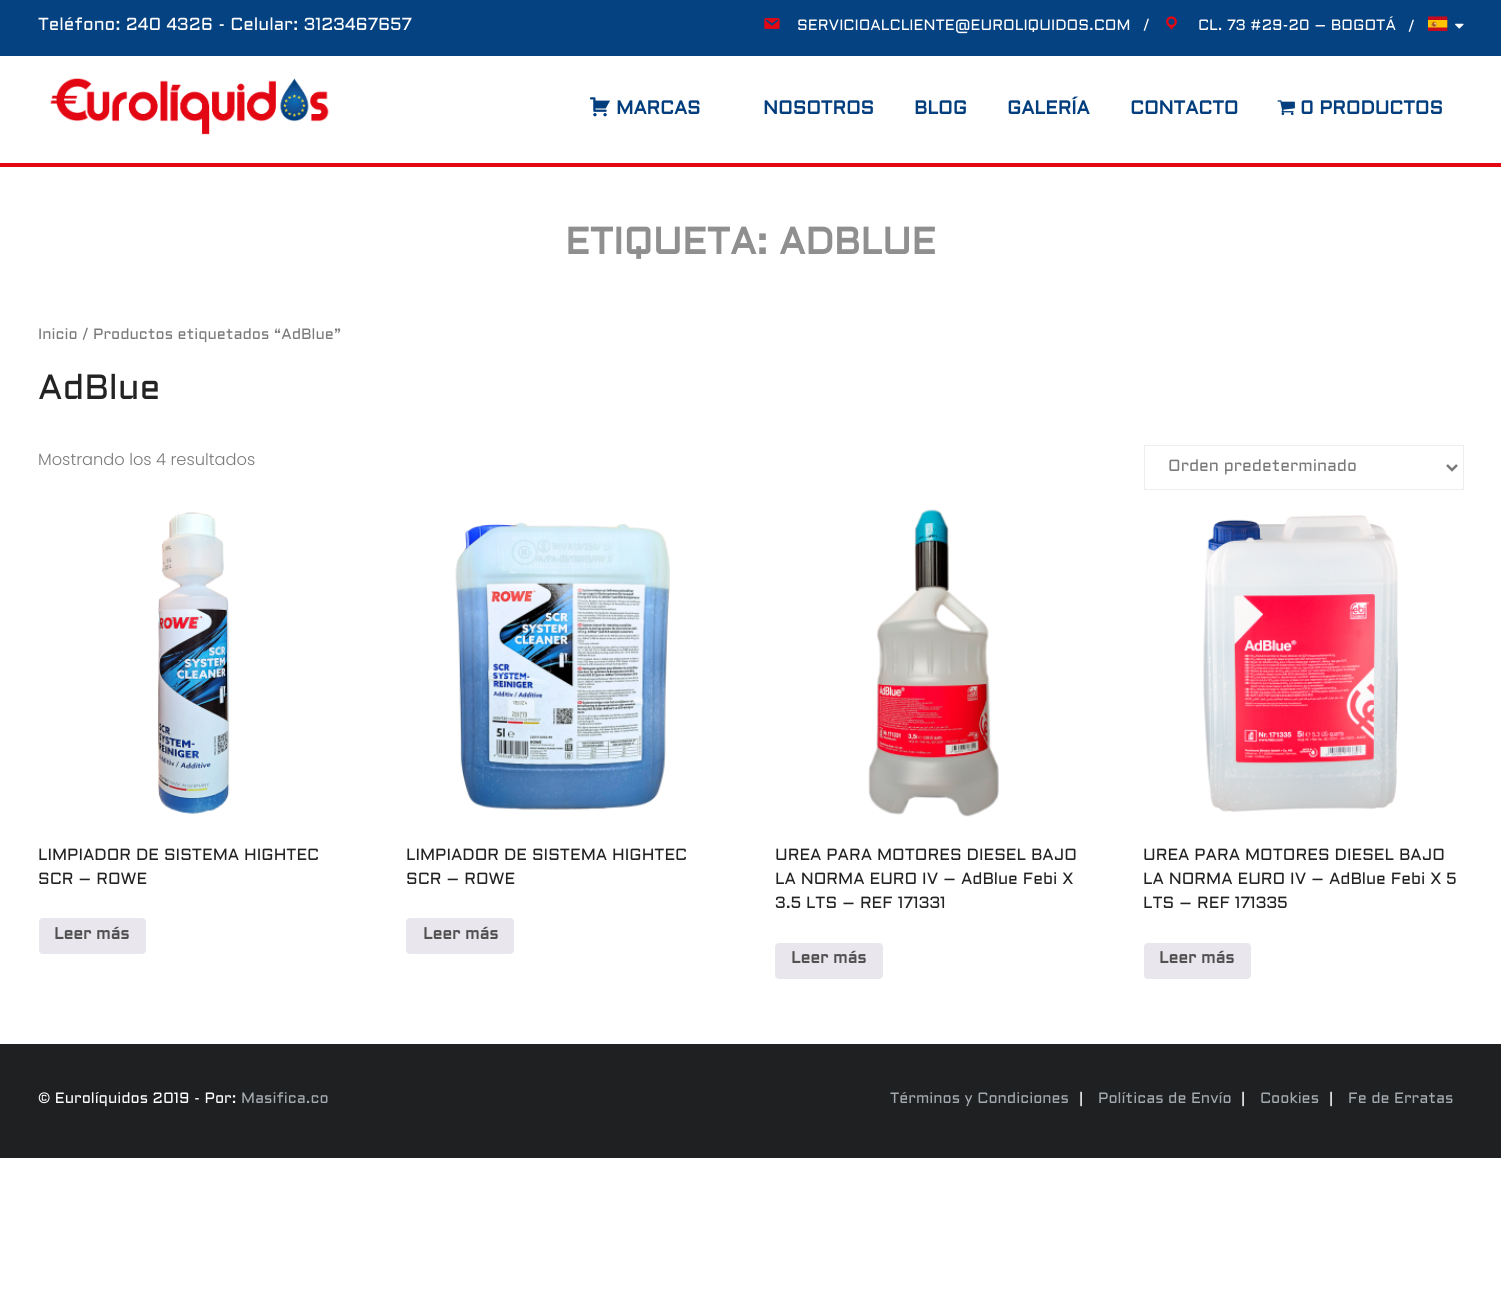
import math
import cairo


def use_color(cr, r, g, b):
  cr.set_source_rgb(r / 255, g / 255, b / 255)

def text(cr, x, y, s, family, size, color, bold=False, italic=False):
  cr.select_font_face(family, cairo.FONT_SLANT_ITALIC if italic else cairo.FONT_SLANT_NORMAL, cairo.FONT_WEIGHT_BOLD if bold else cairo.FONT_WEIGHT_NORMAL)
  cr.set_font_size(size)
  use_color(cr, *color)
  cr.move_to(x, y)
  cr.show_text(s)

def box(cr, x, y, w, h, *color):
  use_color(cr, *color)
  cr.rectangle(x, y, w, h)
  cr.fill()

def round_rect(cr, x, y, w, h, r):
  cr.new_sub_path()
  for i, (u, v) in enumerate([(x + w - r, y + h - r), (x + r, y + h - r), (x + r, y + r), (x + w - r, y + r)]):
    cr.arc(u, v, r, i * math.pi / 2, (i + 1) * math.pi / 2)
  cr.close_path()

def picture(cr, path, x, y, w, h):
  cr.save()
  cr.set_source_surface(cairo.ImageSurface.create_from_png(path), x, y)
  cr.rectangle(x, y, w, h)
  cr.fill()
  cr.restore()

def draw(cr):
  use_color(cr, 255, 255, 255)
  cr.paint()
  box(cr, 0, 0, 1501, 56, 5, 66, 129)
  picture(cr, "img_01.png", 764, 18, 16, 11)
  picture(cr, "img_02.png", 1166, 16, 11, 14)
  picture(cr, "img_03.png", 1428, 16, 20, 15)
  picture(cr, "img_04.png", 1455, 23, 9, 6)
  box(cr, 0, 163, 1501, 4, 227, 6, 19)
  picture(cr, "img_05.png", 50, 78, 279, 57)
  picture(cr, "img_06.png", 589, 97, 21, 20)
  picture(cr, "img_07.png", 1277, 100, 18, 16)
  cr.rectangle(1144.5, 445.5, 319, 44)
  use_color(cr, 238, 238, 238)
  cr.set_line_width(1)
  cr.stroke()
  cr.new_path()
  cr.move_to(1447, 465)
  cr.line_to(1452, 470)
  cr.line_to(1457, 465)
  use_color(cr, 122, 122, 122)
  cr.set_line_width(2.5)
  cr.stroke()
  picture(cr, "img_08.png", 158, 512, 72, 302)
  use_color(cr, 233, 230, 237)
  round_rect(cr, 39, 918, 107, 36, 4)
  cr.fill()
  picture(cr, "img_09.png", 455, 522, 215, 288)
  round_rect(cr, 406, 918, 108, 36, 4)
  cr.fill()
  picture(cr, "img_10.png", 868, 509, 131, 308)
  round_rect(cr, 775, 943, 108, 36, 4)
  cr.fill()
  picture(cr, "img_11.png", 1203, 515, 195, 297)
  round_rect(cr, 1144, 943, 107, 36, 4)
  cr.fill()
  box(cr, 0, 1044, 1501, 114, 30, 32, 33)
  text(cr, 38, 30, "Teléfono: 240 4326 - Celular: 3123467657", "Aldrich", 17.5, (255, 255, 255))
  text(cr, 797, 30, "SERVICIOALCLIENTE@EUROLIQUIDOS.COM", "Aldrich", 15, (255, 255, 255))
  text(cr, 1143, 30, "/", "Aldrich", 15, (255, 255, 255))
  text(cr, 1198, 30, "CL. 73 #29-20 – BOGOTÁ", "Aldrich", 15, (255, 255, 255))
  text(cr, 1408, 31, "/", "Aldrich", 15, (255, 255, 255))
  text(cr, 616, 114, "MARCAS", "Aldrich", 18.75, (2, 62, 125), bold=True)
  text(cr, 763, 114, "NOSOTROS", "Aldrich", 18.75, (2, 62, 125), bold=True)
  text(cr, 914, 114, "BLOG", "Aldrich", 18.75, (2, 62, 125), bold=True)
  text(cr, 1007, 114, "GALERÍA", "Aldrich", 18.75, (2, 62, 125), bold=True)
  text(cr, 1130, 114, "CONTACTO", "Aldrich", 18.75, (2, 62, 125), bold=True)
  text(cr, 1300, 114, "0 PRODUCTOS", "Aldrich", 18.75, (2, 62, 125), bold=True)
  text(cr, 565, 254, "ETIQUETA: ADBLUE", "Aldrich", 37.5, (143, 143, 143), bold=True)
  text(cr, 38, 339, "Inicio / Productos etiquetados “AdBlue”", "Aldrich", 14.95, (122, 122, 122))
  text(cr, 38, 399, "AdBlue", "Aldrich", 35, (35, 35, 35))
  text(cr, 38, 465, "Mostrando los 4 resultados", "Poppins Light", 16.25, (122, 122, 122))
  text(cr, 1168, 471, "Orden predeterminado", "Aldrich", 16.25, (122, 122, 122))
  text(cr, 38, 860, "LIMPIADOR DE SISTEMA HIGHTEC", "Aldrich", 16.25, (35, 35, 35))
  text(cr, 38, 884, "SCR – ROWE", "Aldrich", 16.25, (35, 35, 35))
  text(cr, 54, 939, "Leer más", "Aldrich", 16.25, (81, 81, 81), bold=True)
  text(cr, 406, 860, "LIMPIADOR DE SISTEMA HIGHTEC", "Aldrich", 16.25, (35, 35, 35))
  text(cr, 406, 884, "SCR – ROWE", "Aldrich", 16.25, (35, 35, 35))
  text(cr, 423, 939, "Leer más", "Aldrich", 16.25, (81, 81, 81), bold=True)
  text(cr, 775, 860, "UREA PARA MOTORES DIESEL BAJO", "Aldrich", 16.25, (35, 35, 35))
  text(cr, 775, 884, "LA NORMA EURO IV – AdBlue Febi X", "Aldrich", 16.25, (35, 35, 35))
  text(cr, 775, 908, "3.5 LTS – REF 171331", "Aldrich", 16.25, (35, 35, 35))
  text(cr, 791, 963, "Leer más", "Aldrich", 16.25, (81, 81, 81), bold=True)
  text(cr, 1143, 860, "UREA PARA MOTORES DIESEL BAJO", "Aldrich", 16.25, (35, 35, 35))
  text(cr, 1143, 884, "LA NORMA EURO IV – AdBlue Febi X 5", "Aldrich", 16.25, (35, 35, 35))
  text(cr, 1143, 908, "LTS – REF 171335", "Aldrich", 16.25, (35, 35, 35))
  text(cr, 1159, 963, "Leer más", "Aldrich", 16.25, (81, 81, 81), bold=True)
  text(cr, 38, 1103, "© Eurolíquidos 2019 - Por:", "Aldrich", 15, (255, 255, 255))
  text(cr, 241, 1103, "Masifica.co", "Aldrich", 15, (164, 170, 175))
  text(cr, 890, 1103, "Términos y Condiciones", "Aldrich", 15, (164, 170, 175))
  text(cr, 1079, 1103, "|", "Aldrich", 15, (255, 255, 255))
  text(cr, 1098, 1103, "Políticas de Envío", "Aldrich", 15, (164, 170, 175))
  text(cr, 1241, 1103, "|", "Aldrich", 15, (255, 255, 255))
  text(cr, 1260, 1103, "Cookies", "Aldrich", 15, (164, 170, 175))
  text(cr, 1329, 1103, "|", "Aldrich", 15, (255, 255, 255))
  text(cr, 1348, 1103, "Fe de Erratas", "Aldrich", 15, (164, 170, 175))


surface = cairo.ImageSurface(cairo.FORMAT_RGB24, 1501, 1301)
cr = cairo.Context(surface)
options = cairo.FontOptions()
options.set_hint_metrics(cairo.HINT_METRICS_OFF)
options.set_hint_style(cairo.HINT_STYLE_NONE)
cr.set_font_options(options)
cr.set_miter_limit(4)
draw(cr)
surface.write_to_png("out.png")
